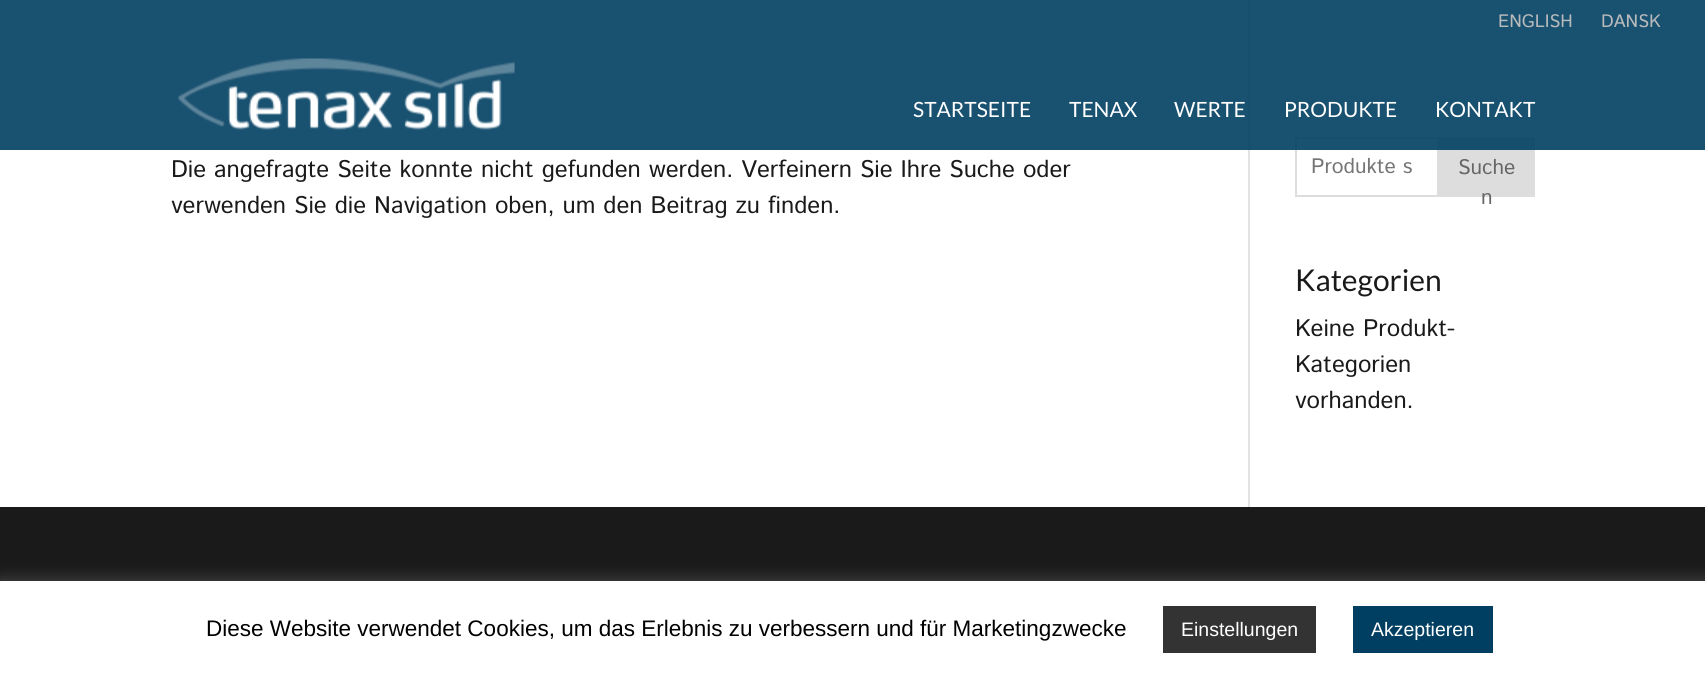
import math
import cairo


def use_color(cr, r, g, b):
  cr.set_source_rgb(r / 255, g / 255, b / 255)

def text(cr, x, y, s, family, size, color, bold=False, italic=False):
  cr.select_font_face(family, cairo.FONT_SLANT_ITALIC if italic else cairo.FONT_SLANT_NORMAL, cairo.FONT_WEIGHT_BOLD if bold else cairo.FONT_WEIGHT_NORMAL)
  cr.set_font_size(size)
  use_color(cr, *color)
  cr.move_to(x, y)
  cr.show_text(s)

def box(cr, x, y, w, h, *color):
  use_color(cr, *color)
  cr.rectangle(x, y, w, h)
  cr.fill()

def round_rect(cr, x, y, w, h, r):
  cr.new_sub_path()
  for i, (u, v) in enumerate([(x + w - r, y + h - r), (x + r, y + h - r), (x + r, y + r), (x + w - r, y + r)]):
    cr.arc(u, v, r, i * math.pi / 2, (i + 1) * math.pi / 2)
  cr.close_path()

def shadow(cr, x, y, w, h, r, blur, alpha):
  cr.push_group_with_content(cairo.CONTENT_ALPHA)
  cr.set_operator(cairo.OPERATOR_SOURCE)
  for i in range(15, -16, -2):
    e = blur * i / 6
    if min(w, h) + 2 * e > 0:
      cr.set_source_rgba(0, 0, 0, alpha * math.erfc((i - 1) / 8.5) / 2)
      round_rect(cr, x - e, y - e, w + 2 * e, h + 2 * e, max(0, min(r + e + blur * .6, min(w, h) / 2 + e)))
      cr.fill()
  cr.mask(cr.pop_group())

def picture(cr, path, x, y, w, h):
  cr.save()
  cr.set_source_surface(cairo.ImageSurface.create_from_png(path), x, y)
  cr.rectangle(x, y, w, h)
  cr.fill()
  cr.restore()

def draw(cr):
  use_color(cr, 255, 255, 255)
  cr.paint()
  box(cr, 1248, 0, 2, 507, 226, 226, 226)
  cr.rectangle(1296, 138, 142, 58)
  use_color(cr, 221, 221, 221)
  cr.stroke()
  box(cr, 1439, 137, 96, 60, 221, 221, 221)
  cr.set_source_rgba(0, 0.247, 0.38, 0.9)
  cr.rectangle(0, 0, 1705, 150)
  cr.fill()
  picture(cr, "img_01.png", 178, 58, 337, 72)
  box(cr, 0, 507, 1705, 74, 26, 26, 26)
  use_color(cr, 172, 171, 171)
  shadow(cr, 0, 579, 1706, 98, 0, 7.5, 0.3)
  box(cr, 0, 581, 1705, 97, 255, 255, 255)
  box(cr, 1163, 606, 153, 47, 51, 51, 51)
  box(cr, 1353, 606, 140, 47, 0, 63, 97)
  text(cr, 1498, 27, "ENGLISH", "Istok Web", 18, (184, 186, 188))
  text(cr, 1601, 27, "DANSK", "Istok Web", 18, (184, 186, 188))
  text(cr, 913, 117, "STARTSEITE", "Lato", 21, (255, 255, 255))
  text(cr, 1069, 117, "TENAX", "Lato", 21, (255, 255, 255))
  text(cr, 1174, 117, "WERTE", "Lato", 21, (255, 255, 255))
  text(cr, 1284, 117, "PRODUKTE", "Lato", 21, (255, 255, 255))
  text(cr, 1435, 117, "KONTAKT", "Lato", 21, (255, 255, 255))
  text(cr, 171, 177, "Die angefragte Seite konnte nicht gefunden werden. Verfeinern Sie Ihre Suche oder", "Istok Web", 24, (26, 26, 26))
  text(cr, 171, 213, "verwenden Sie die Navigation oben, um den Beitrag zu finden.", "Istok Web", 24, (26, 26, 26))
  text(cr, 1311, 173, "Produkte s", "Istok Web", 21, (117, 117, 117))
  text(cr, 1458, 174, "Suche", "Istok Web", 21, (102, 102, 102))
  text(cr, 1481, 204, "n", "Istok Web", 21, (102, 102, 102))
  text(cr, 1295, 291, "Kategorien", "Lato", 30, (26, 26, 26))
  text(cr, 1295, 336, "Keine Produkt-", "Istok Web", 24, (26, 26, 26))
  text(cr, 1295, 372, "Kategorien", "Istok Web", 24, (26, 26, 26))
  text(cr, 1295, 408, "vorhanden.", "Istok Web", 24, (26, 26, 26))
  text(cr, 206, 636, "Diese Website verwendet Cookies, um das Erlebnis zu verbessern und für Marketingzwecke", "Liberation Sans", 22.5, (0, 0, 0))
  text(cr, 1181, 636, "Einstellungen", "Liberation Sans", 19.5, (255, 255, 255))
  text(cr, 1371, 636, "Akzeptieren", "Liberation Sans", 19.5, (255, 255, 255))


surface = cairo.ImageSurface(cairo.FORMAT_RGB24, 1705, 678)
cr = cairo.Context(surface)
options = cairo.FontOptions()
options.set_hint_metrics(cairo.HINT_METRICS_OFF)
options.set_hint_style(cairo.HINT_STYLE_NONE)
cr.set_font_options(options)
cr.set_miter_limit(4)
draw(cr)
surface.write_to_png("out.png")
